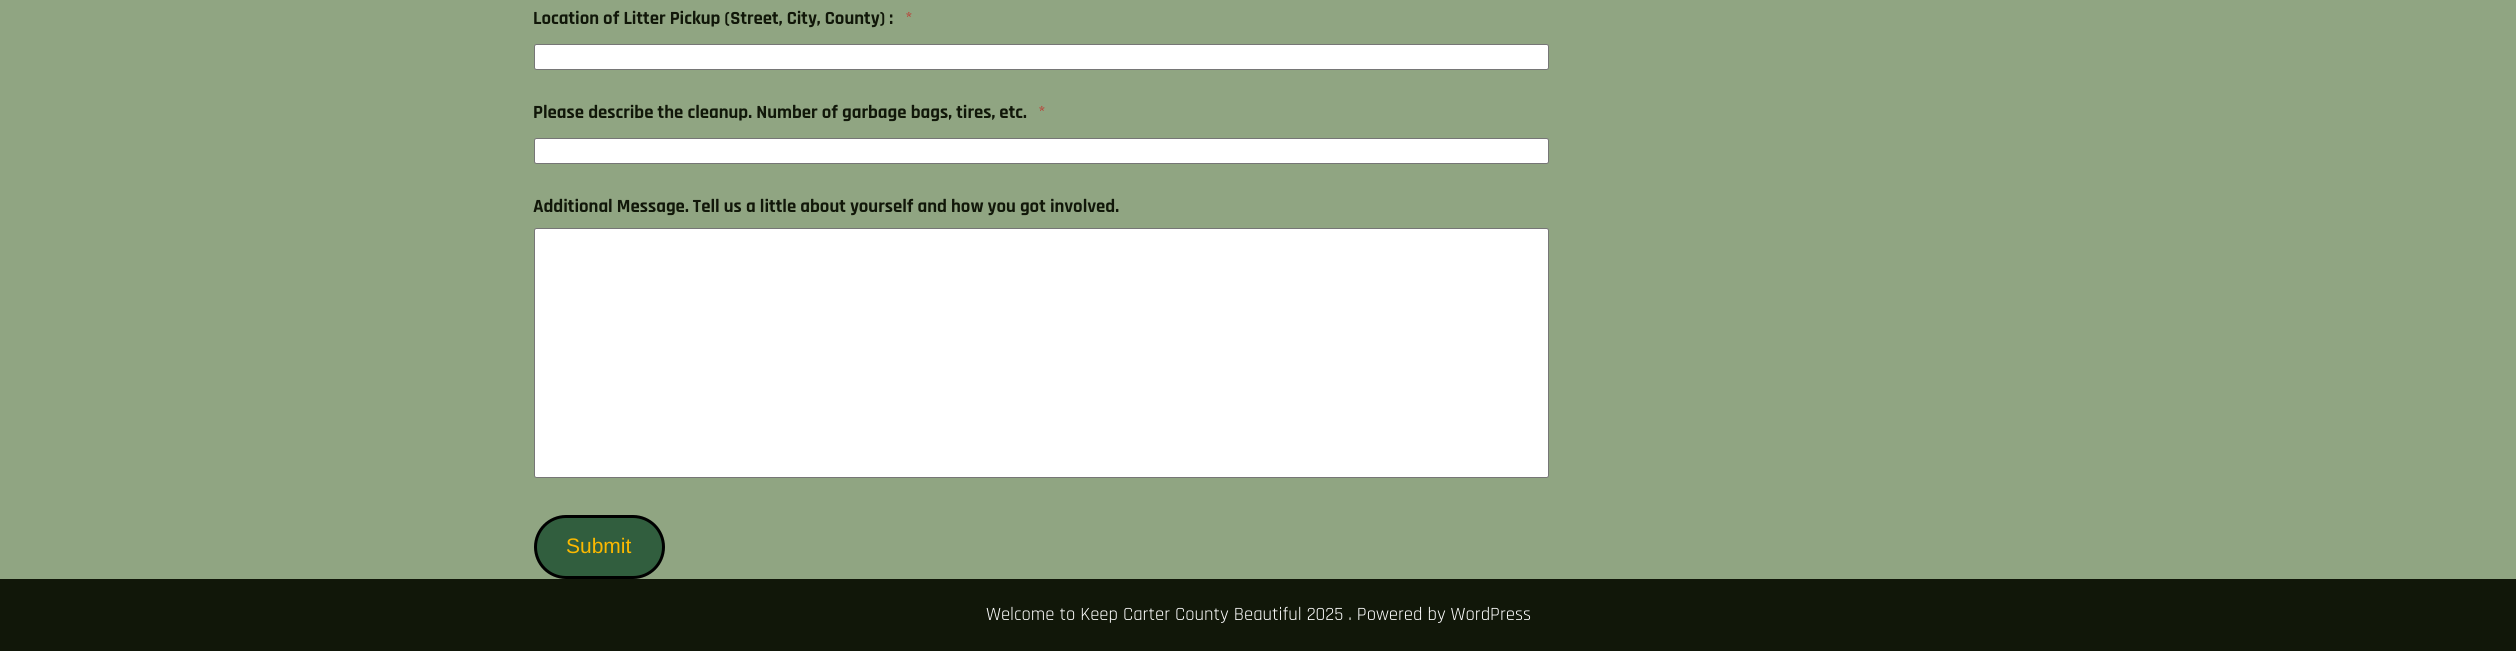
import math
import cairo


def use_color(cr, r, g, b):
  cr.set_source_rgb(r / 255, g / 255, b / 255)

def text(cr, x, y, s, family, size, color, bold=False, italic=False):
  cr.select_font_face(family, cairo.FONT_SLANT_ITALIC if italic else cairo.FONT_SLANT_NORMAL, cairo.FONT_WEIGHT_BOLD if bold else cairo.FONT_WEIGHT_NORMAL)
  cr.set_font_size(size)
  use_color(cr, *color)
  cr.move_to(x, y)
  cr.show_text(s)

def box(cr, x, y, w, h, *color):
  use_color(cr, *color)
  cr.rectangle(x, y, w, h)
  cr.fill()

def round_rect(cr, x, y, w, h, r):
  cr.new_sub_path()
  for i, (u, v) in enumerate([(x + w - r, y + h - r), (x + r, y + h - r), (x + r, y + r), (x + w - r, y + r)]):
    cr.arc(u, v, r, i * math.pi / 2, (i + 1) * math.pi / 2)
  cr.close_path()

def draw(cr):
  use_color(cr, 144, 165, 130)
  cr.paint()
  use_color(cr, 255, 255, 255)
  round_rect(cr, 534.5, 44.5, 1014, 25, 2)
  cr.fill_preserve()
  use_color(cr, 118, 118, 118)
  cr.set_line_width(1)
  cr.stroke()
  use_color(cr, 255, 255, 255)
  round_rect(cr, 534.5, 138.5, 1014, 25, 2)
  cr.fill_preserve()
  use_color(cr, 118, 118, 118)
  cr.stroke()
  use_color(cr, 255, 255, 255)
  round_rect(cr, 534.5, 228.5, 1014, 249, 2)
  cr.fill_preserve()
  use_color(cr, 118, 118, 118)
  cr.stroke()
  use_color(cr, 49, 94, 62)
  round_rect(cr, 535.5, 516.5, 128, 61, 30.5)
  cr.fill_preserve()
  use_color(cr, 0, 0, 0)
  cr.set_line_width(3)
  cr.stroke()
  box(cr, 0, 579, 2516, 72, 17, 23, 9)
  text(cr, 533, 24, "Location of Litter Pickup (Street, City, County) :", "Rajdhani", 18.75, (17, 23, 9), bold=True)
  text(cr, 905, 24, "*", "Rajdhani", 18.75, (204, 24, 24))
  text(cr, 533, 118, "Please describe the cleanup. Number of garbage bags, tires, etc.", "Rajdhani", 18.75, (17, 23, 9), bold=True)
  text(cr, 1038, 118, "*", "Rajdhani", 18.75, (204, 24, 24))
  text(cr, 533, 212, "Additional Message. Tell us a little about yourself and how you got involved.", "Rajdhani", 18.75, (17, 23, 9), bold=True)
  text(cr, 566, 553, "Submit", "Liberation Sans", 21, (252, 185, 0))
  text(cr, 986, 620, "Welcome to Keep Carter County Beautiful 2025 . Powered by WordPress", "Rajdhani", 18.75, (255, 255, 255))


surface = cairo.ImageSurface(cairo.FORMAT_RGB24, 2516, 651)
cr = cairo.Context(surface)
options = cairo.FontOptions()
options.set_hint_metrics(cairo.HINT_METRICS_OFF)
options.set_hint_style(cairo.HINT_STYLE_NONE)
cr.set_font_options(options)
cr.set_miter_limit(4)
draw(cr)
surface.write_to_png("out.png")
